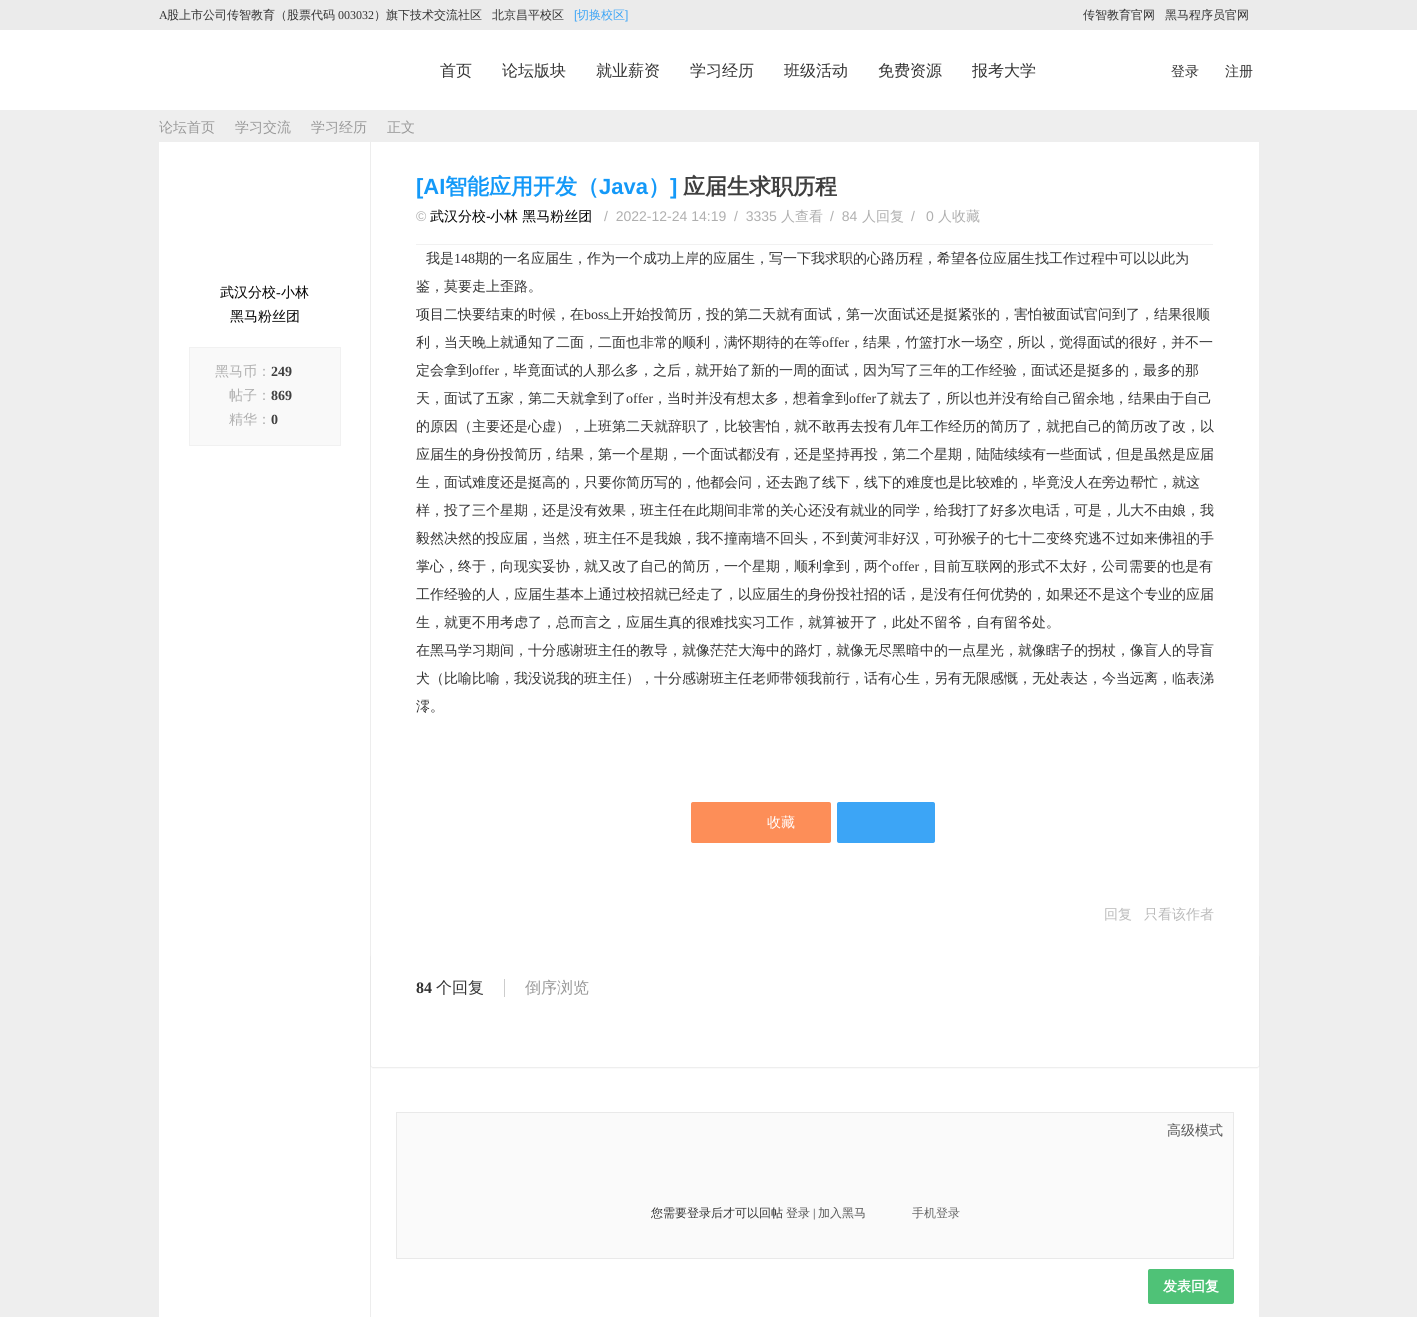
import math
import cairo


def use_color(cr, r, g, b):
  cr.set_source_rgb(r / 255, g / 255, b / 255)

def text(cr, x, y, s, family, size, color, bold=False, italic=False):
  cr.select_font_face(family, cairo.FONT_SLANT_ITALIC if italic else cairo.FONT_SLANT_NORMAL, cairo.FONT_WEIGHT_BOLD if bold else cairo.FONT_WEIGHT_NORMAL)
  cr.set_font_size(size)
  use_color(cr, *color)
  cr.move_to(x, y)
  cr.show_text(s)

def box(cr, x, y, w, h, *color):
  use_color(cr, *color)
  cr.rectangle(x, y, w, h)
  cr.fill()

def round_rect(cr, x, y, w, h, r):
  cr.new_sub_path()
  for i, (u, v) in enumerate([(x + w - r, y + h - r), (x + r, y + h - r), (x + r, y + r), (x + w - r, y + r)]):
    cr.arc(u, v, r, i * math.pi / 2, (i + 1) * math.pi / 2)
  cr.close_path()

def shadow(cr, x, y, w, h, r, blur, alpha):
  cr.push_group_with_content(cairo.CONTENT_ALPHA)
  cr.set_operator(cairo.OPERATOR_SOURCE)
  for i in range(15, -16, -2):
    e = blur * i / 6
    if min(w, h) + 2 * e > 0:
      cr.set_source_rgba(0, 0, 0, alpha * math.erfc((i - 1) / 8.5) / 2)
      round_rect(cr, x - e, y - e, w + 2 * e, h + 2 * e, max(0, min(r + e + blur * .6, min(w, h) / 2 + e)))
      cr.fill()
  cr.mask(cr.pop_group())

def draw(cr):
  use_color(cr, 238, 238, 238)
  cr.paint()
  box(cr, 0, 30, 1417, 80, 255, 255, 255)
  box(cr, 0, 0, 1417, 30, 235, 235, 235)
  box(cr, 159, 142, 1100, 1175, 255, 255, 255)
  use_color(cr, 249, 249, 249)
  cr.rectangle(189.5, 347.5, 151, 98)
  cr.fill_preserve()
  use_color(cr, 241, 241, 241)
  cr.set_line_width(1)
  cr.stroke()
  box(cr, 370, 142, 1, 1175, 237, 237, 237)
  box(cr, 416, 244, 797, 1, 241, 241, 241)
  use_color(cr, 253, 142, 88)
  round_rect(cr, 691, 802, 140, 41, 2)
  cr.fill()
  use_color(cr, 60, 165, 246)
  round_rect(cr, 837, 802, 98, 41, 2)
  cr.fill()
  use_color(cr, 0, 0, 0)
  shadow(cr, 371, 955, 888, 113, 2, 0.5, 0.08)
  use_color(cr, 255, 255, 255)
  round_rect(cr, 371, 954, 888, 113, 2)
  cr.fill()
  box(cr, 504, 979, 1, 18, 204, 204, 204)
  cr.rectangle(396.5, 1112.5, 837, 146)
  use_color(cr, 233, 233, 233)
  cr.stroke()
  box(cr, 397, 1113, 836, 145, 250, 250, 250)
  use_color(cr, 79, 194, 119)
  round_rect(cr, 1148, 1269, 86, 35, 2)
  cr.fill()
  text(cr, 159, 19, "A", "Liberation Serif", 12, (51, 51, 51))
  text(cr, 167, 19, "股上市公司传智教育（股票代码", "WenQuanYi Zen Hei Medium", 12, (51, 51, 51))
  text(cr, 338, 19, "003032", "Liberation Serif", 12, (51, 51, 51))
  text(cr, 374, 19, "）旗下技术交流社区", "WenQuanYi Zen Hei Medium", 12, (51, 51, 51))
  text(cr, 492, 19, "北京昌平校区", "WenQuanYi Zen Hei Medium", 12, (51, 51, 51))
  text(cr, 1083, 19, "传智教育官网", "WenQuanYi Zen Hei Medium", 12, (51, 51, 51))
  text(cr, 1165, 19, "黑马程序员官网", "WenQuanYi Zen Hei Medium", 12, (51, 51, 51))
  text(cr, 574, 19, "[", "Liberation Sans", 12, (60, 165, 246))
  text(cr, 577, 19, "切换校区", "WenQuanYi Zen Hei Medium", 12, (60, 165, 246))
  text(cr, 625, 19, "]", "Liberation Sans", 12, (60, 165, 246))
  text(cr, 440, 76, "首页", "WenQuanYi Zen Hei Medium", 16, (51, 51, 51))
  text(cr, 502, 76, "论坛版块", "WenQuanYi Zen Hei Medium", 16, (51, 51, 51))
  text(cr, 596, 76, "就业薪资", "WenQuanYi Zen Hei Medium", 16, (51, 51, 51))
  text(cr, 690, 76, "学习经历", "WenQuanYi Zen Hei Medium", 16, (51, 51, 51))
  text(cr, 784, 76, "班级活动", "WenQuanYi Zen Hei Medium", 16, (51, 51, 51))
  text(cr, 878, 76, "免费资源", "WenQuanYi Zen Hei Medium", 16, (51, 51, 51))
  text(cr, 972, 76, "报考大学", "WenQuanYi Zen Hei Medium", 16, (51, 51, 51))
  text(cr, 1171, 76, "登录", "WenQuanYi Zen Hei Medium", 14, (51, 51, 51))
  text(cr, 1225, 76, "注册", "WenQuanYi Zen Hei Medium", 14, (51, 51, 51))
  text(cr, 159, 132, "论坛首页", "WenQuanYi Zen Hei Medium", 14, (153, 153, 153))
  text(cr, 235, 132, "学习交流", "WenQuanYi Zen Hei Medium", 14, (153, 153, 153))
  text(cr, 311, 132, "学习经历", "WenQuanYi Zen Hei Medium", 14, (153, 153, 153))
  text(cr, 387, 132, "正文", "WenQuanYi Zen Hei Medium", 14, (153, 153, 153))
  text(cr, 220, 297, "武汉分校", "WenQuanYi Zen Hei Medium", 14, (0, 0, 0))
  text(cr, 276, 297, "-", "Liberation Serif", 14, (0, 0, 0))
  text(cr, 281, 297, "小林", "WenQuanYi Zen Hei Medium", 14, (0, 0, 0))
  text(cr, 230, 321, "黑马粉丝团", "WenQuanYi Zen Hei Medium", 14, (0, 0, 0))
  text(cr, 215, 376, "黑马币：", "WenQuanYi Zen Hei Medium", 14, (175, 175, 175))
  text(cr, 271, 376, "249", "Liberation Serif", 14, (63, 63, 63), bold=True)
  text(cr, 229, 400, "帖子：", "WenQuanYi Zen Hei Medium", 14, (175, 175, 175))
  text(cr, 271, 400, "869", "Liberation Serif", 14, (63, 63, 63), bold=True)
  text(cr, 229, 424, "精华：", "WenQuanYi Zen Hei Medium", 14, (175, 175, 175))
  text(cr, 271, 424, "0", "Liberation Serif", 14, (63, 63, 63), bold=True)
  text(cr, 416, 194, "[AI", "Liberation Sans", 22, (20, 153, 248), bold=True)
  text(cr, 445, 194, "智能应用开发（", "WenQuanYi Zen Hei", 22, (20, 153, 248), bold=True)
  text(cr, 599, 194, "Java", "Liberation Sans", 22, (20, 153, 248), bold=True)
  text(cr, 648, 194, "）", "WenQuanYi Zen Hei", 22, (20, 153, 248), bold=True)
  text(cr, 670, 194, "]", "Liberation Sans", 22, (20, 153, 248), bold=True)
  text(cr, 683, 194, "应届生求职历程", "WenQuanYi Zen Hei", 22, (63, 63, 63), bold=True)
  text(cr, 416, 221, "©", "Liberation Sans", 14, (175, 175, 175))
  text(cr, 430, 221, "武汉分校", "WenQuanYi Zen Hei Medium", 14, (0, 0, 0))
  text(cr, 486, 221, "-", "Liberation Sans", 14, (0, 0, 0))
  text(cr, 490, 221, "小林 黑马粉丝团", "WenQuanYi Zen Hei Medium", 14, (0, 0, 0))
  text(cr, 604, 221, "/  2022-12-24 14:19  /  3335", "Liberation Sans", 14, (175, 175, 175))
  text(cr, 781, 221, "人查看", "WenQuanYi Zen Hei Medium", 14, (175, 175, 175))
  text(cr, 830, 221, "/  84", "Liberation Sans", 14, (175, 175, 175))
  text(cr, 862, 221, "人回复", "WenQuanYi Zen Hei Medium", 14, (175, 175, 175))
  text(cr, 911, 221, "/", "Liberation Sans", 14, (175, 175, 175))
  text(cr, 926, 221, "0", "Liberation Sans", 14, (175, 175, 175))
  text(cr, 938, 221, "人收藏", "WenQuanYi Zen Hei Medium", 14, (175, 175, 175))
  text(cr, 426, 263, "我是", "WenQuanYi Zen Hei Medium", 14, (51, 51, 51))
  text(cr, 454, 263, "148", "Liberation Serif", 14, (51, 51, 51))
  text(cr, 475, 263, "期的一名应届生，作为一个成功上岸的应届生，写一下我求职的心路历程，希望各位应届生找工作过程中可以以此为", "WenQuanYi Zen Hei Medium", 14, (51, 51, 51))
  text(cr, 416, 291, "鉴，莫要走上歪路。", "WenQuanYi Zen Hei Medium", 14, (51, 51, 51))
  text(cr, 416, 319, "项目二快要结束的时候，在", "WenQuanYi Zen Hei Medium", 14, (51, 51, 51))
  text(cr, 584, 319, "boss", "Liberation Serif", 14, (51, 51, 51))
  text(cr, 608, 319, "上开始投简历，投的第二天就有面试，第一次面试还是挺紧张的，害怕被面试官问到了，结果很顺", "WenQuanYi Zen Hei Medium", 14, (51, 51, 51))
  text(cr, 416, 347, "利，当天晚上就通知了二面，二面也非常的顺利，满怀期待的在等", "WenQuanYi Zen Hei Medium", 14, (51, 51, 51))
  text(cr, 822, 347, "offer", "Liberation Serif", 14, (51, 51, 51))
  text(cr, 849, 347, "，结果，竹篮打水一场空，所以，觉得面试的很好，并不一", "WenQuanYi Zen Hei Medium", 14, (51, 51, 51))
  text(cr, 416, 375, "定会拿到", "WenQuanYi Zen Hei Medium", 14, (51, 51, 51))
  text(cr, 472, 375, "offer", "Liberation Serif", 14, (51, 51, 51))
  text(cr, 499, 375, "，毕竟面试的人那么多，之后，就开始了新的一周的面试，因为写了三年的工作经验，面试还是挺多的，最多的那", "WenQuanYi Zen Hei Medium", 14, (51, 51, 51))
  text(cr, 416, 403, "天，面试了五家，第二天就拿到了", "WenQuanYi Zen Hei Medium", 14, (51, 51, 51))
  text(cr, 626, 403, "offer", "Liberation Serif", 14, (51, 51, 51))
  text(cr, 653, 403, "，当时并没有想太多，想着拿到", "WenQuanYi Zen Hei Medium", 14, (51, 51, 51))
  text(cr, 849, 403, "offer", "Liberation Serif", 14, (51, 51, 51))
  text(cr, 876, 403, "了就去了，所以也并没有给自己留余地，结果由于自己", "WenQuanYi Zen Hei Medium", 14, (51, 51, 51))
  text(cr, 416, 431, "的原因（主要还是心虚），上班第二天就辞职了，比较害怕，就不敢再去投有几年工作经历的简历了，就把自己的简历改了改，以", "WenQuanYi Zen Hei Medium", 14, (51, 51, 51))
  text(cr, 416, 459, "应届生的身份投简历，结果，第一个星期，一个面试都没有，还是坚持再投，第二个星期，陆陆续续有一些面试，但是虽然是应届", "WenQuanYi Zen Hei Medium", 14, (51, 51, 51))
  text(cr, 416, 487, "生，面试难度还是挺高的，只要你简历写的，他都会问，还去跑了线下，线下的难度也是比较难的，毕竟没人在旁边帮忙，就这", "WenQuanYi Zen Hei Medium", 14, (51, 51, 51))
  text(cr, 416, 515, "样，投了三个星期，还是没有效果，班主任在此期间非常的关心还没有就业的同学，给我打了好多次电话，可是，儿大不由娘，我", "WenQuanYi Zen Hei Medium", 14, (51, 51, 51))
  text(cr, 416, 543, "毅然决然的投应届，当然，班主任不是我娘，我不撞南墙不回头，不到黄河非好汉，可孙猴子的七十二变终究逃不过如来佛祖的手", "WenQuanYi Zen Hei Medium", 14, (51, 51, 51))
  text(cr, 416, 571, "掌心，终于，向现实妥协，就又改了自己的简历，一个星期，顺利拿到，两个", "WenQuanYi Zen Hei Medium", 14, (51, 51, 51))
  text(cr, 892, 571, "offer", "Liberation Serif", 14, (51, 51, 51))
  text(cr, 919, 571, "，目前互联网的形式不太好，公司需要的也是有", "WenQuanYi Zen Hei Medium", 14, (51, 51, 51))
  text(cr, 416, 599, "工作经验的人，应届生基本上通过校招就已经走了，以应届生的身份投社招的话，是没有任何优势的，如果还不是这个专业的应届", "WenQuanYi Zen Hei Medium", 14, (51, 51, 51))
  text(cr, 416, 627, "生，就更不用考虑了，总而言之，应届生真的很难找实习工作，就算被开了，此处不留爷，自有留爷处。", "WenQuanYi Zen Hei Medium", 14, (51, 51, 51))
  text(cr, 416, 655, "在黑马学习期间，十分感谢班主任的教导，就像茫茫大海中的路灯，就像无尽黑暗中的一点星光，就像瞎子的拐杖，像盲人的导盲", "WenQuanYi Zen Hei Medium", 14, (51, 51, 51))
  text(cr, 416, 683, "犬（比喻比喻，我没说我的班主任），十分感谢班主任老师带领我前行，话有心生，另有无限感慨，无处表达，今当远离，临表涕", "WenQuanYi Zen Hei Medium", 14, (51, 51, 51))
  text(cr, 416, 711, "澪。", "WenQuanYi Zen Hei Medium", 14, (51, 51, 51))
  text(cr, 767, 827, "收藏", "WenQuanYi Zen Hei Medium", 14, (255, 255, 255))
  text(cr, 1104, 919, "回复", "WenQuanYi Zen Hei Medium", 14, (187, 187, 187))
  text(cr, 1144, 919, "只看该作者", "WenQuanYi Zen Hei Medium", 14, (187, 187, 187))
  text(cr, 416, 993, "84", "Liberation Serif", 16, (51, 51, 51), bold=True)
  text(cr, 436, 993, "个回复", "WenQuanYi Zen Hei Medium", 16, (51, 51, 51))
  text(cr, 525, 993, "倒序浏览", "WenQuanYi Zen Hei Medium", 16, (153, 153, 153))
  text(cr, 1167, 1135, "高级模式", "WenQuanYi Zen Hei Medium", 14, (85, 85, 85))
  text(cr, 651, 1217, "您需要登录后才可以回帖", "WenQuanYi Zen Hei Medium", 12, (51, 51, 51))
  text(cr, 786, 1217, "登录", "WenQuanYi Zen Hei Medium", 12, (85, 85, 85))
  text(cr, 813, 1217, "|", "Liberation Serif", 12, (51, 51, 51))
  text(cr, 818, 1217, "加入黑马", "WenQuanYi Zen Hei Medium", 12, (85, 85, 85))
  text(cr, 912, 1217, "手机登录", "WenQuanYi Zen Hei Medium", 12, (102, 102, 102))
  text(cr, 1163, 1291, "发表回复", "WenQuanYi Zen Hei", 14, (255, 255, 255), bold=True)


surface = cairo.ImageSurface(cairo.FORMAT_RGB24, 1417, 1317)
cr = cairo.Context(surface)
options = cairo.FontOptions()
options.set_hint_metrics(cairo.HINT_METRICS_OFF)
options.set_hint_style(cairo.HINT_STYLE_NONE)
cr.set_font_options(options)
cr.set_miter_limit(4)
draw(cr)
surface.write_to_png("out.png")
